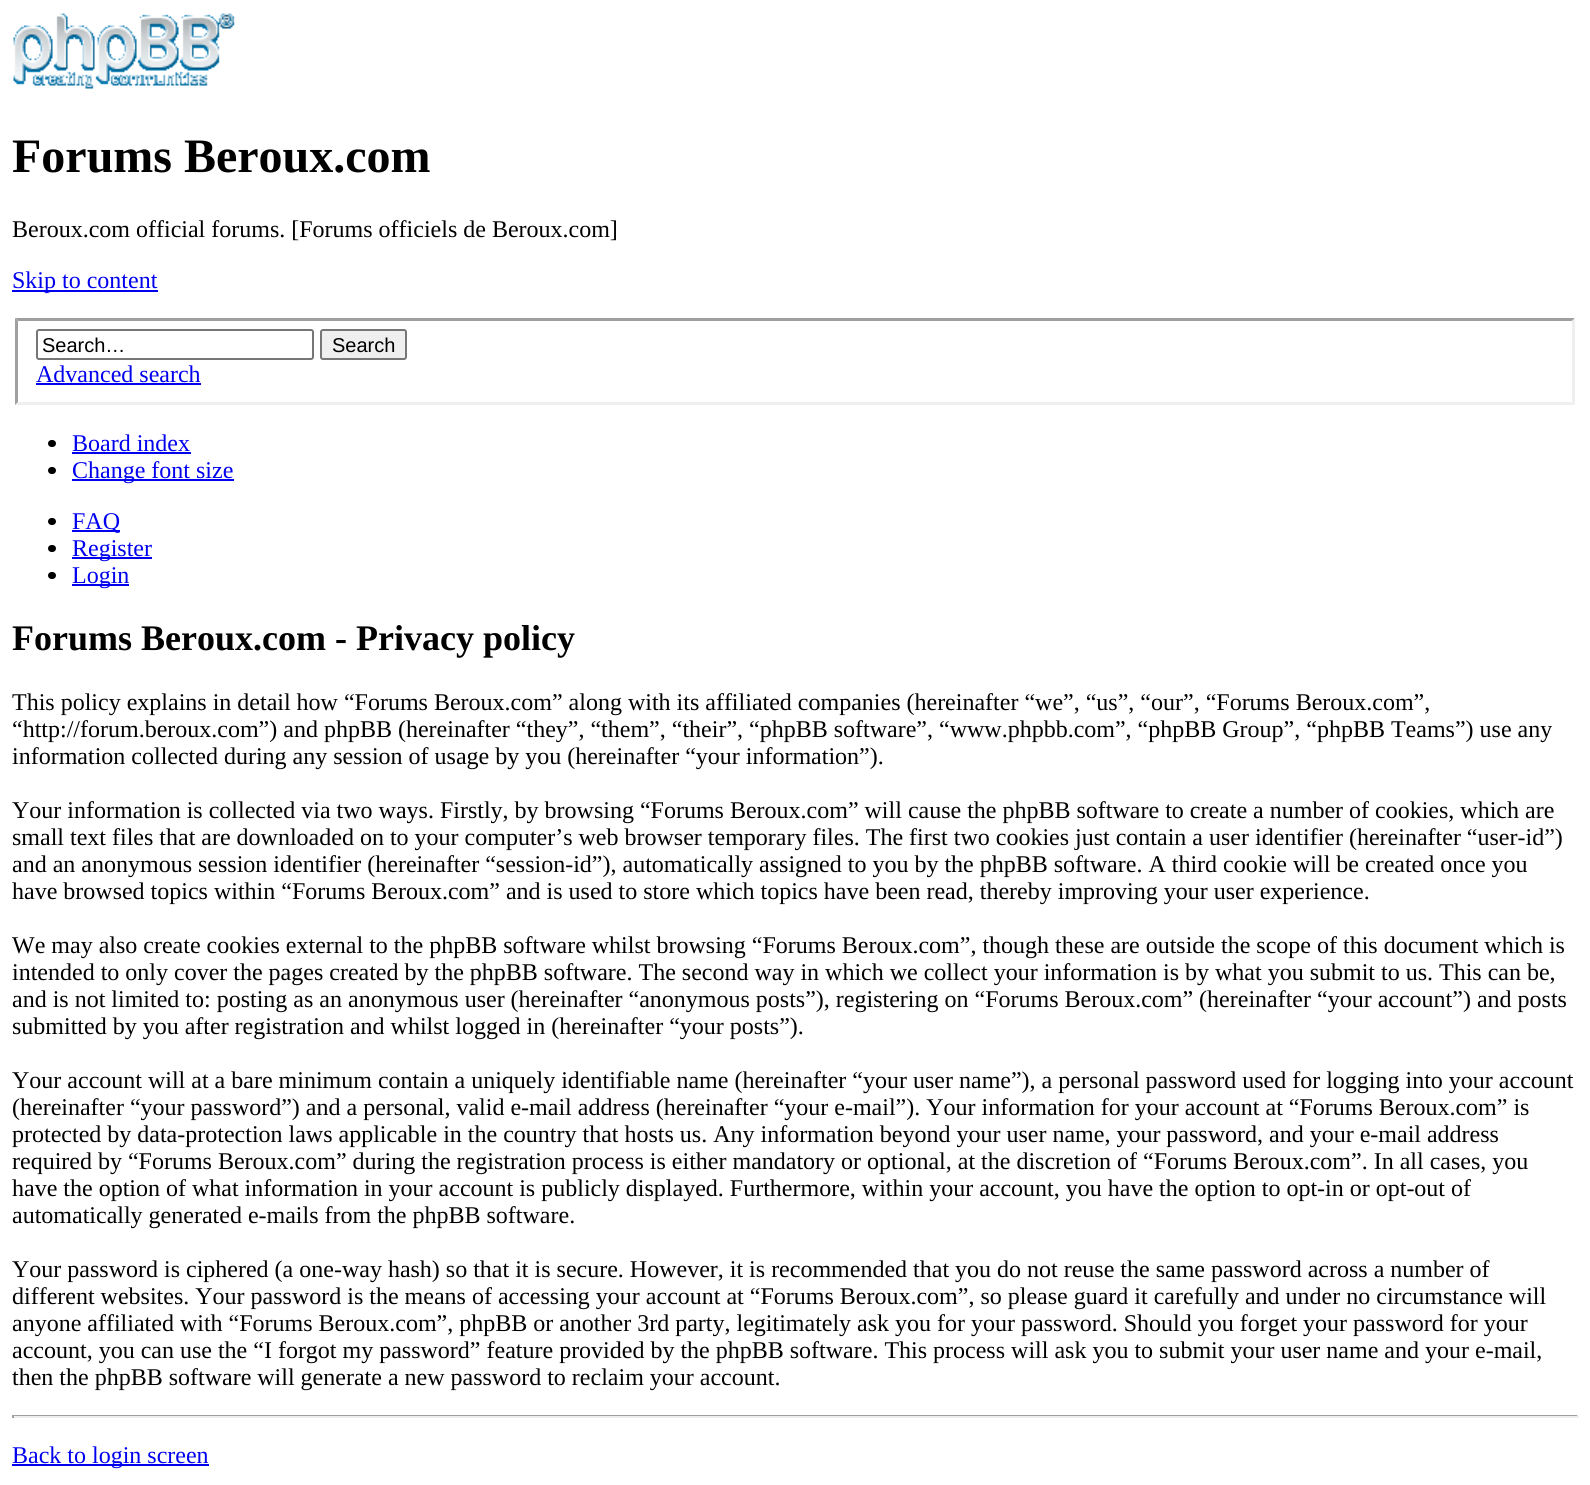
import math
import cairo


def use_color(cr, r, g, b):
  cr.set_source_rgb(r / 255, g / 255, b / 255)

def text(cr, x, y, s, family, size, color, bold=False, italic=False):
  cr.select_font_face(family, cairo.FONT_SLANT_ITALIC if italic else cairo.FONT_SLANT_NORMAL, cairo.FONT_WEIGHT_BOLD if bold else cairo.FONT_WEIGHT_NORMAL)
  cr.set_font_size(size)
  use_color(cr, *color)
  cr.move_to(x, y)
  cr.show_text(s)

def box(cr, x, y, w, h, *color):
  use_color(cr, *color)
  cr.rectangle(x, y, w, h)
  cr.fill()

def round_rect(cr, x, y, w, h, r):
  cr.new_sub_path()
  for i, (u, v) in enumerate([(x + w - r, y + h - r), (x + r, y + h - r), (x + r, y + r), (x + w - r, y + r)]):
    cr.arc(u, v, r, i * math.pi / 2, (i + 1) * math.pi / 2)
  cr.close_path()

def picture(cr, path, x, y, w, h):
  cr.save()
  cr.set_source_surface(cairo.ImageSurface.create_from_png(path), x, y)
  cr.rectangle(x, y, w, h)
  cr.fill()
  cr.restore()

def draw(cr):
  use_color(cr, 255, 255, 255)
  cr.paint()
  picture(cr, "img_01.png", 13, 13, 222, 76)
  box(cr, 12, 290, 146, 2, 0, 0, 238)
  use_color(cr, 159, 159, 159)
  cr.new_path()
  cr.move_to(15, 318)
  cr.line_to(1575, 318)
  cr.line_to(1572, 321)
  cr.line_to(18, 321)
  cr.close_path()
  cr.fill()
  use_color(cr, 239, 239, 239)
  cr.new_path()
  cr.move_to(1575, 318)
  cr.line_to(1575, 405)
  cr.line_to(1572, 402)
  cr.line_to(1572, 321)
  cr.close_path()
  cr.fill()
  cr.new_path()
  cr.move_to(1575, 405)
  cr.line_to(15, 405)
  cr.line_to(18, 402)
  cr.line_to(1572, 402)
  cr.close_path()
  cr.fill()
  use_color(cr, 159, 159, 159)
  cr.new_path()
  cr.move_to(15, 405)
  cr.line_to(15, 318)
  cr.line_to(18, 321)
  cr.line_to(18, 402)
  cr.close_path()
  cr.fill()
  round_rect(cr, 37, 330, 276, 29, 2)
  use_color(cr, 118, 118, 118)
  cr.stroke()
  use_color(cr, 239, 239, 239)
  round_rect(cr, 321, 330, 85, 29, 2)
  cr.fill_preserve()
  use_color(cr, 118, 118, 118)
  cr.stroke()
  box(cr, 36, 383, 165, 2, 0, 0, 238)
  use_color(cr, 0, 0, 0)
  round_rect(cr, 48, 440, 8, 7, 3.5)
  cr.fill()
  box(cr, 72, 452, 119, 2, 0, 0, 238)
  use_color(cr, 0, 0, 0)
  round_rect(cr, 48, 467, 8, 7, 3.5)
  cr.fill()
  box(cr, 72, 479, 162, 2, 0, 0, 238)
  use_color(cr, 0, 0, 0)
  round_rect(cr, 48, 518, 8, 7, 3.5)
  cr.fill()
  box(cr, 72, 530, 48, 2, 0, 0, 238)
  use_color(cr, 0, 0, 0)
  round_rect(cr, 48, 545, 8, 7, 3.5)
  cr.fill()
  box(cr, 72, 557, 80, 2, 0, 0, 238)
  use_color(cr, 0, 0, 0)
  round_rect(cr, 48, 572, 8, 7, 3.5)
  cr.fill()
  box(cr, 72, 584, 57, 2, 0, 0, 238)
  box(cr, 12, 1415, 1566, 1, 159, 159, 159)
  box(cr, 1577, 1415, 2, 3, 238, 238, 238)
  box(cr, 12, 1416, 1566, 2, 238, 238, 238)
  box(cr, 12, 1415, 2, 3, 159, 159, 159)
  box(cr, 12, 1464, 197, 2, 0, 0, 238)
  text(cr, 12, 172, "Forums Beroux.com", "Liberation Serif", 48, (0, 0, 0), bold=True)
  text(cr, 12, 237, "Beroux.com official forums. [Forums officiels de Beroux.com]", "Liberation Serif", 24, (0, 0, 0))
  text(cr, 12, 288, "Skip to content", "Liberation Serif", 24, (0, 0, 238))
  text(cr, 42, 352, "Search…", "Liberation Sans", 20, (0, 0, 0))
  text(cr, 332, 352, "Search", "Liberation Sans", 20, (0, 0, 0))
  text(cr, 36, 382, "Advanced search", "Liberation Serif", 24, (0, 0, 238))
  text(cr, 72, 451, "Board index", "Liberation Serif", 24, (0, 0, 238))
  text(cr, 72, 478, "Change font size", "Liberation Serif", 24, (0, 0, 238))
  text(cr, 72, 529, "FAQ", "Liberation Serif", 24, (0, 0, 238))
  text(cr, 72, 556, "Register", "Liberation Serif", 24, (0, 0, 238))
  text(cr, 72, 583, "Login", "Liberation Serif", 24, (0, 0, 238))
  text(cr, 12, 650, "Forums Beroux.com - Privacy policy", "Liberation Serif", 36, (0, 0, 0), bold=True)
  text(cr, 12, 710, "This policy explains in detail how “Forums Beroux.com” along with its affiliated companies (hereinafter “we”, “us”, “our”, “Forums Beroux.com”,", "Liberation Serif", 24, (0, 0, 0))
  text(cr, 12, 737, "“http://forum.beroux.com”) and phpBB (hereinafter “they”, “them”, “their”, “phpBB software”, “www.phpbb.com”, “phpBB Group”, “phpBB Teams”) use any", "Liberation Serif", 24, (0, 0, 0))
  text(cr, 12, 764, "information collected during any session of usage by you (hereinafter “your information”).", "Liberation Serif", 24, (0, 0, 0))
  text(cr, 12, 818, "Your information is collected via two ways. Firstly, by browsing “Forums Beroux.com” will cause the phpBB software to create a number of cookies, which are", "Liberation Serif", 24, (0, 0, 0))
  text(cr, 12, 845, "small text files that are downloaded on to your computer’s web browser temporary files. The first two cookies just contain a user identifier (hereinafter “user-id”)", "Liberation Serif", 24, (0, 0, 0))
  text(cr, 12, 872, "and an anonymous session identifier (hereinafter “session-id”), automatically assigned to you by the phpBB software. A third cookie will be created once you", "Liberation Serif", 24, (0, 0, 0))
  text(cr, 12, 899, "have browsed topics within “Forums Beroux.com” and is used to store which topics have been read, thereby improving your user experience.", "Liberation Serif", 24, (0, 0, 0))
  text(cr, 12, 953, "We may also create cookies external to the phpBB software whilst browsing “Forums Beroux.com”, though these are outside the scope of this document which is", "Liberation Serif", 24, (0, 0, 0))
  text(cr, 12, 980, "intended to only cover the pages created by the phpBB software. The second way in which we collect your information is by what you submit to us. This can be,", "Liberation Serif", 24, (0, 0, 0))
  text(cr, 12, 1007, "and is not limited to: posting as an anonymous user (hereinafter “anonymous posts”), registering on “Forums Beroux.com” (hereinafter “your account”) and posts", "Liberation Serif", 24, (0, 0, 0))
  text(cr, 12, 1034, "submitted by you after registration and whilst logged in (hereinafter “your posts”).", "Liberation Serif", 24, (0, 0, 0))
  text(cr, 12, 1088, "Your account will at a bare minimum contain a uniquely identifiable name (hereinafter “your user name”), a personal password used for logging into your account", "Liberation Serif", 24, (0, 0, 0))
  text(cr, 12, 1115, "(hereinafter “your password”) and a personal, valid e-mail address (hereinafter “your e-mail”). Your information for your account at “Forums Beroux.com” is", "Liberation Serif", 24, (0, 0, 0))
  text(cr, 12, 1142, "protected by data-protection laws applicable in the country that hosts us. Any information beyond your user name, your password, and your e-mail address", "Liberation Serif", 24, (0, 0, 0))
  text(cr, 12, 1169, "required by “Forums Beroux.com” during the registration process is either mandatory or optional, at the discretion of “Forums Beroux.com”. In all cases, you", "Liberation Serif", 24, (0, 0, 0))
  text(cr, 12, 1196, "have the option of what information in your account is publicly displayed. Furthermore, within your account, you have the option to opt-in or opt-out of", "Liberation Serif", 24, (0, 0, 0))
  text(cr, 12, 1223, "automatically generated e-mails from the phpBB software.", "Liberation Serif", 24, (0, 0, 0))
  text(cr, 12, 1277, "Your password is ciphered (a one-way hash) so that it is secure. However, it is recommended that you do not reuse the same password across a number of", "Liberation Serif", 24, (0, 0, 0))
  text(cr, 12, 1304, "different websites. Your password is the means of accessing your account at “Forums Beroux.com”, so please guard it carefully and under no circumstance will", "Liberation Serif", 24, (0, 0, 0))
  text(cr, 12, 1331, "anyone affiliated with “Forums Beroux.com”, phpBB or another 3rd party, legitimately ask you for your password. Should you forget your password for your", "Liberation Serif", 24, (0, 0, 0))
  text(cr, 12, 1358, "account, you can use the “I forgot my password” feature provided by the phpBB software. This process will ask you to submit your user name and your e-mail,", "Liberation Serif", 24, (0, 0, 0))
  text(cr, 12, 1385, "then the phpBB software will generate a new password to reclaim your account.", "Liberation Serif", 24, (0, 0, 0))
  text(cr, 12, 1463, "Back to login screen", "Liberation Serif", 24, (0, 0, 238))


surface = cairo.ImageSurface(cairo.FORMAT_RGB24, 1590, 1485)
cr = cairo.Context(surface)
options = cairo.FontOptions()
options.set_hint_metrics(cairo.HINT_METRICS_OFF)
options.set_hint_style(cairo.HINT_STYLE_NONE)
cr.set_font_options(options)
cr.set_miter_limit(4)
draw(cr)
surface.write_to_png("out.png")
